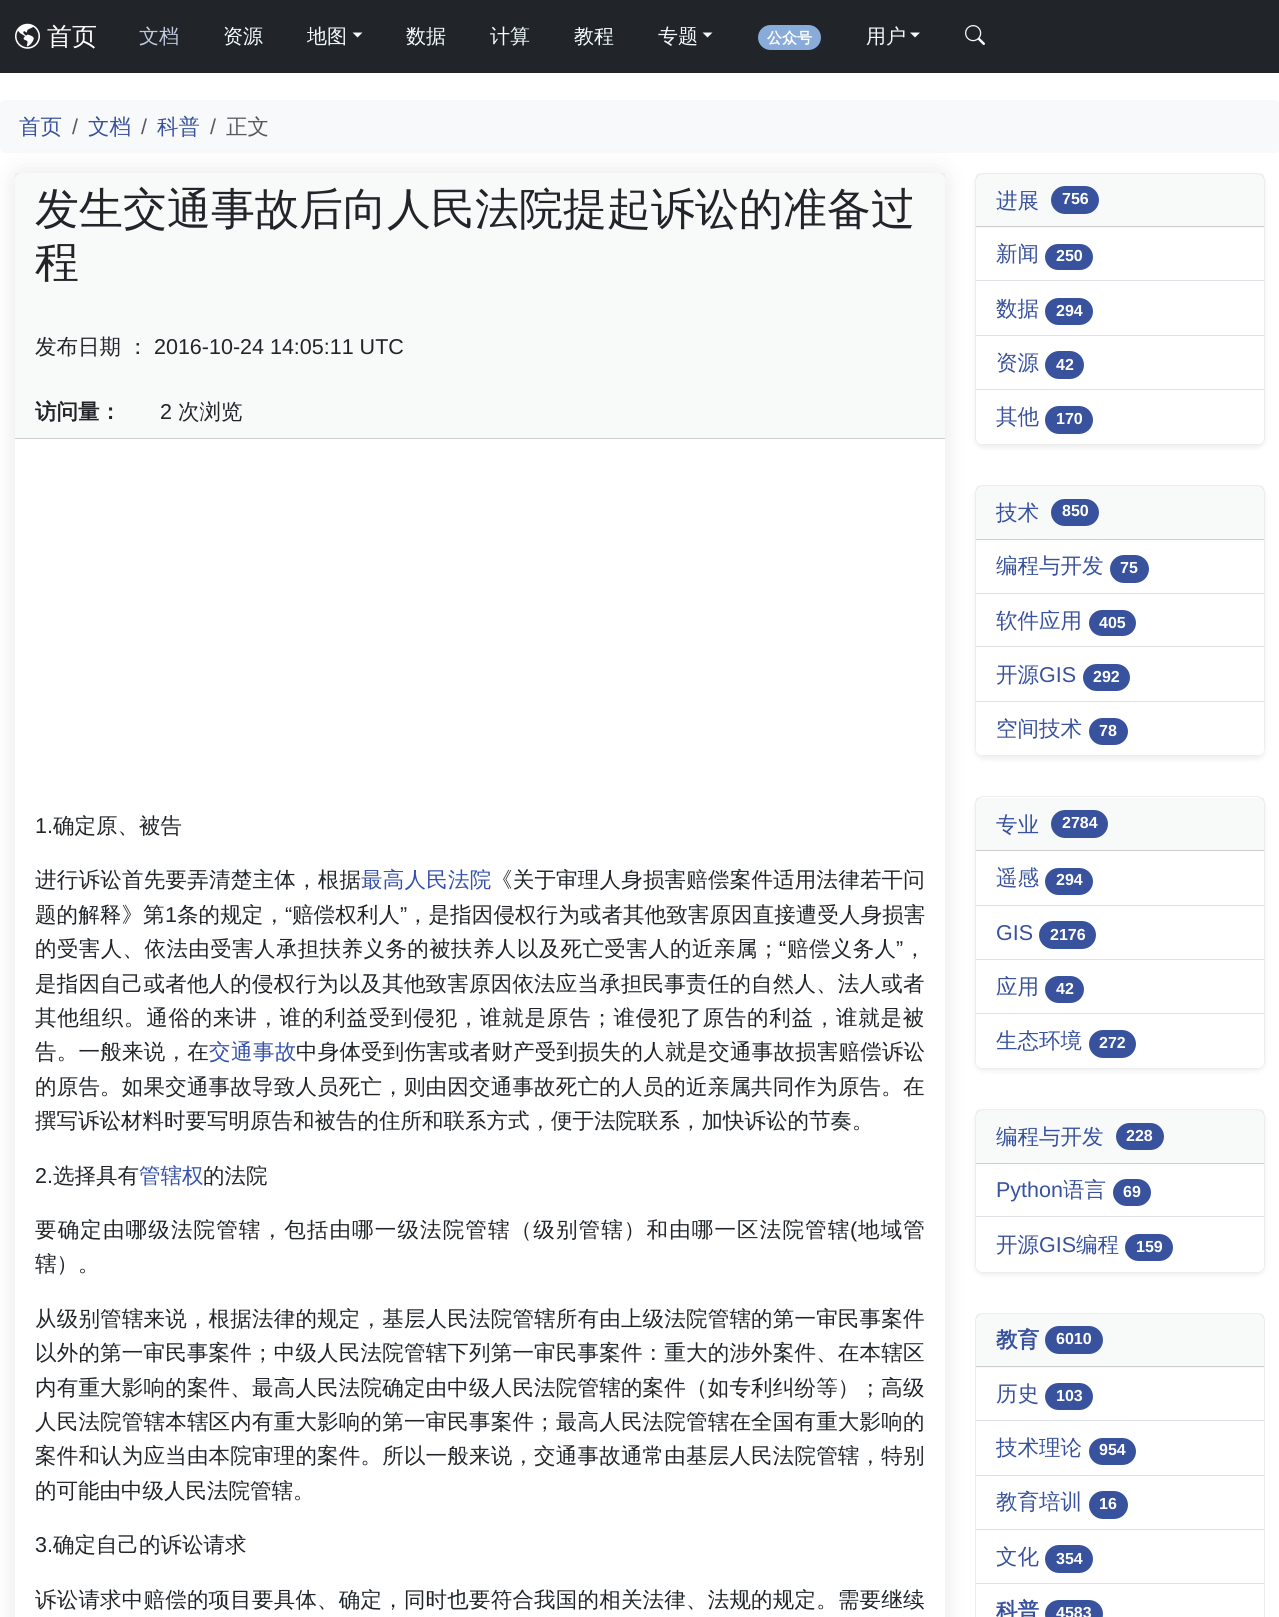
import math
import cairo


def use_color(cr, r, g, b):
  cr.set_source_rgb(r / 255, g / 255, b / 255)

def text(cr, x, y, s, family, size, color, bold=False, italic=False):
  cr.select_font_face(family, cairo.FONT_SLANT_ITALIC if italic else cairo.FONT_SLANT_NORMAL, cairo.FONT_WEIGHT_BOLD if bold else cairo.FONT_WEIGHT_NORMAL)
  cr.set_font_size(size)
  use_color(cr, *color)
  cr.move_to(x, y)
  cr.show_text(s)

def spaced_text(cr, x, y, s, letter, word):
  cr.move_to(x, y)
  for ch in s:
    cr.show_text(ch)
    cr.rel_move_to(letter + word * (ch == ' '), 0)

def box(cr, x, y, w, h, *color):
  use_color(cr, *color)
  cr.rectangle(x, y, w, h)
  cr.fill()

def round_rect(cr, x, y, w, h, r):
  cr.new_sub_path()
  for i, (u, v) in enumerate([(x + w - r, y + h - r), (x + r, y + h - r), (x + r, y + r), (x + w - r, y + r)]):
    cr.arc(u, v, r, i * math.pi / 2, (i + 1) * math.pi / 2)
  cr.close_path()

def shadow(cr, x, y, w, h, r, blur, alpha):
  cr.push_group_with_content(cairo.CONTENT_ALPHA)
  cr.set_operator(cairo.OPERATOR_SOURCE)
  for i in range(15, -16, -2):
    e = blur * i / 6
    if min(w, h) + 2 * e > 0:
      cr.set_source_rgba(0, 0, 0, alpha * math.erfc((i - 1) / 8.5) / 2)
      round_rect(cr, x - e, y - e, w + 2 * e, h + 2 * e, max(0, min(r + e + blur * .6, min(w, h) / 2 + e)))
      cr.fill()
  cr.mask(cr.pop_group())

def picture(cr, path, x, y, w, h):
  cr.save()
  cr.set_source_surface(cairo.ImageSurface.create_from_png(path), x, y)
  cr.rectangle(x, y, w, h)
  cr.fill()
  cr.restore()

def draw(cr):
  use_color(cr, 255, 255, 255)
  cr.paint()
  box(cr, 0, 0, 1279, 73, 33, 37, 41)
  picture(cr, "img_01.png", 15, 23, 25, 26)
  use_color(cr, 243, 251, 255)
  cr.new_path()
  cr.move_to(352.5, 32.5)
  cr.line_to(362.5, 32.5)
  cr.line_to(357.5, 37.5)
  cr.close_path()
  cr.fill()
  cr.new_path()
  cr.move_to(702.5, 32.5)
  cr.line_to(712.5, 32.5)
  cr.line_to(707.5, 37.5)
  cr.close_path()
  cr.fill()
  use_color(cr, 136, 171, 218)
  round_rect(cr, 758, 25, 63, 25, 12.5)
  cr.fill()
  use_color(cr, 243, 251, 255)
  cr.new_path()
  cr.move_to(910, 32.5)
  cr.line_to(920, 32.5)
  cr.line_to(915, 37.5)
  cr.close_path()
  cr.fill()
  picture(cr, "img_02.png", 965, 25, 20, 20)
  use_color(cr, 248, 249, 250)
  round_rect(cr, 0, 100, 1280, 53, 5)
  cr.fill()
  cr.save()
  cr.set_fill_rule(cairo.FILL_RULE_EVEN_ODD)
  cr.new_path()
  cr.move_to(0, 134)
  cr.line_to(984, 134)
  cr.line_to(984, 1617)
  cr.line_to(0, 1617)
  cr.close_path()
  cr.move_to(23, 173)
  cr.line_to(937, 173)
  cr.curve_to(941.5, 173, 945, 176.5, 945, 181)
  cr.line_to(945, 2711)
  cr.curve_to(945, 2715.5, 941.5, 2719, 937, 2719)
  cr.line_to(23, 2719)
  cr.curve_to(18.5, 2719, 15, 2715.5, 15, 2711)
  cr.line_to(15, 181)
  cr.curve_to(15, 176.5, 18.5, 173, 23, 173)
  cr.close_path()
  cr.clip()
  use_color(cr, 48, 48, 48)
  shadow(cr, 15, 173, 930, 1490, 8, 12.5, 0.12)
  cr.restore()
  cr.set_source_rgba(0.129, 0.145, 0.161, 0.03)
  cr.rectangle(15, 173, 930, 265)
  cr.fill()
  box(cr, 15, 438, 930, 1, 205, 205, 205)
  use_color(cr, 0, 0, 0)
  shadow(cr, 975, 175, 290, 273, 8, 2.5, 0.07)
  use_color(cr, 255, 255, 255)
  round_rect(cr, 975.5, 173.5, 289, 271, 7.5)
  cr.fill_preserve()
  use_color(cr, 237, 237, 237)
  cr.set_line_width(1)
  cr.stroke()
  cr.set_source_rgba(0.129, 0.145, 0.161, 0.03)
  cr.rectangle(976, 174, 288, 54)
  cr.fill()
  box(cr, 976, 226, 288, 1, 205, 205, 205)
  use_color(cr, 56, 82, 157)
  round_rect(cr, 1051, 186, 48, 28, 14)
  cr.fill()
  box(cr, 976, 280, 288, 1, 222, 226, 230)
  use_color(cr, 56, 82, 157)
  round_rect(cr, 1045, 244, 48, 26, 13)
  cr.fill()
  box(cr, 976, 335, 288, 1, 222, 226, 230)
  use_color(cr, 56, 82, 157)
  round_rect(cr, 1045, 298, 48, 27, 13.5)
  cr.fill()
  box(cr, 976, 389, 288, 1, 222, 226, 230)
  use_color(cr, 56, 82, 157)
  round_rect(cr, 1045, 351, 39, 28, 14)
  cr.fill()
  use_color(cr, 255, 255, 255)
  cr.new_path()
  cr.move_to(976, 390)
  cr.line_to(1264, 390)
  cr.line_to(1264, 438)
  cr.curve_to(1264, 441.5, 1261.5, 444, 1258, 444)
  cr.line_to(982, 444)
  cr.curve_to(978.5, 444, 976, 441.5, 976, 438)
  cr.close_path()
  cr.fill()
  use_color(cr, 56, 82, 157)
  round_rect(cr, 1045, 406, 48, 28, 14)
  cr.fill()
  cr.save()
  cr.set_fill_rule(cairo.FILL_RULE_EVEN_ODD)
  cr.new_path()
  cr.move_to(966, 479)
  cr.line_to(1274, 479)
  cr.line_to(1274, 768)
  cr.line_to(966, 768)
  cr.close_path()
  cr.move_to(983, 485)
  cr.line_to(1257, 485)
  cr.curve_to(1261.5, 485, 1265, 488.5, 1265, 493)
  cr.line_to(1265, 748)
  cr.curve_to(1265, 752.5, 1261.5, 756, 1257, 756)
  cr.line_to(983, 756)
  cr.curve_to(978.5, 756, 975, 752.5, 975, 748)
  cr.line_to(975, 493)
  cr.curve_to(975, 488.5, 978.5, 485, 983, 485)
  cr.close_path()
  cr.clip()
  use_color(cr, 0, 0, 0)
  shadow(cr, 975, 488, 290, 271, 8, 2.5, 0.07)
  cr.restore()
  round_rect(cr, 975.5, 485.5, 289, 270, 7.5)
  use_color(cr, 237, 237, 237)
  cr.stroke()
  cr.set_source_rgba(0.129, 0.145, 0.161, 0.03)
  cr.rectangle(976, 486, 288, 53)
  cr.fill()
  box(cr, 976, 539, 288, 1, 205, 205, 205)
  use_color(cr, 56, 82, 157)
  round_rect(cr, 1051, 499, 48, 27, 13.5)
  cr.fill()
  box(cr, 976, 593, 288, 1, 222, 226, 230)
  use_color(cr, 56, 82, 157)
  round_rect(cr, 1110, 555, 39, 28, 14)
  cr.fill()
  box(cr, 976, 646, 288, 1, 222, 226, 230)
  use_color(cr, 56, 82, 157)
  round_rect(cr, 1089, 610, 47, 26, 13)
  cr.fill()
  box(cr, 976, 701, 288, 1, 222, 226, 230)
  use_color(cr, 56, 82, 157)
  round_rect(cr, 1083, 664, 47, 27, 13.5)
  cr.fill()
  use_color(cr, 255, 255, 255)
  cr.new_path()
  cr.move_to(976, 703)
  cr.line_to(1264, 703)
  cr.line_to(1264, 749)
  cr.curve_to(1264, 752.5, 1261.5, 755, 1258, 755)
  cr.line_to(982, 755)
  cr.curve_to(978.5, 755, 976, 752.5, 976, 749)
  cr.close_path()
  cr.fill()
  use_color(cr, 56, 82, 157)
  round_rect(cr, 1089, 718, 39, 27, 13.5)
  cr.fill()
  use_color(cr, 0, 0, 0)
  shadow(cr, 975, 799, 290, 272, 8, 2.5, 0.07)
  use_color(cr, 255, 255, 255)
  round_rect(cr, 975, 796, 290, 273, 8)
  cr.fill()
  round_rect(cr, 975.5, 796.5, 289, 272, 7.5)
  cr.set_source_rgba(0, 0, 0, 0.07)
  cr.stroke()
  cr.set_source_rgba(0.129, 0.145, 0.161, 0.03)
  cr.rectangle(976, 798, 288, 52)
  cr.fill()
  box(cr, 976, 850, 288, 1, 205, 205, 205)
  use_color(cr, 56, 82, 157)
  round_rect(cr, 1051, 810, 57, 28, 14)
  cr.fill()
  box(cr, 976, 905, 288, 1, 222, 226, 230)
  use_color(cr, 56, 82, 157)
  round_rect(cr, 1045, 868, 48, 27, 13.5)
  cr.fill()
  box(cr, 976, 959, 288, 1, 222, 226, 230)
  use_color(cr, 56, 82, 157)
  round_rect(cr, 1039, 921, 57, 28, 14)
  cr.fill()
  box(cr, 976, 1013, 288, 1, 222, 226, 230)
  use_color(cr, 56, 82, 157)
  round_rect(cr, 1045, 976, 39, 27, 13.5)
  cr.fill()
  use_color(cr, 255, 255, 255)
  cr.new_path()
  cr.move_to(976, 1014)
  cr.line_to(1264, 1014)
  cr.line_to(1264, 1062)
  cr.curve_to(1264, 1065.5, 1261.5, 1068, 1258, 1068)
  cr.line_to(982, 1068)
  cr.curve_to(978.5, 1068, 976, 1065.5, 976, 1062)
  cr.close_path()
  cr.fill()
  use_color(cr, 56, 82, 157)
  round_rect(cr, 1089, 1030, 47, 28, 14)
  cr.fill()
  use_color(cr, 0, 0, 0)
  shadow(cr, 975, 1111, 290, 164, 8, 2.5, 0.07)
  use_color(cr, 255, 255, 255)
  round_rect(cr, 975, 1109, 290, 164, 8)
  cr.fill()
  round_rect(cr, 975.5, 1109.5, 289, 163, 7.5)
  cr.set_source_rgba(0, 0, 0, 0.07)
  cr.stroke()
  cr.set_source_rgba(0.129, 0.145, 0.161, 0.03)
  cr.rectangle(976, 1110, 288, 53)
  cr.fill()
  box(cr, 976, 1163, 288, 1, 205, 205, 205)
  use_color(cr, 56, 82, 157)
  round_rect(cr, 1116, 1123, 48, 27, 13.5)
  cr.fill()
  box(cr, 976, 1216, 288, 1, 222, 226, 230)
  use_color(cr, 56, 82, 157)
  round_rect(cr, 1113, 1179, 38, 27, 13.5)
  cr.fill()
  use_color(cr, 255, 255, 255)
  cr.new_path()
  cr.move_to(976, 1218)
  cr.line_to(1264, 1218)
  cr.line_to(1264, 1265)
  cr.curve_to(1264, 1268.5, 1261.5, 1271, 1258, 1271)
  cr.line_to(982, 1271)
  cr.curve_to(978.5, 1271, 976, 1268.5, 976, 1265)
  cr.close_path()
  cr.fill()
  use_color(cr, 56, 82, 157)
  round_rect(cr, 1125, 1234, 48, 27, 13.5)
  cr.fill()
  round_rect(cr, 975.5, 1313.5, 289, 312, 7.5)
  use_color(cr, 237, 237, 237)
  cr.stroke()
  cr.set_source_rgba(0.129, 0.145, 0.161, 0.03)
  cr.rectangle(976, 1314, 288, 54)
  cr.fill()
  box(cr, 976, 1366, 288, 1, 205, 205, 205)
  use_color(cr, 56, 82, 157)
  round_rect(cr, 1045, 1326, 58, 28, 14)
  cr.fill()
  box(cr, 976, 1420, 288, 1, 222, 226, 230)
  use_color(cr, 56, 82, 157)
  round_rect(cr, 1045, 1383, 48, 27, 13.5)
  cr.fill()
  box(cr, 976, 1475, 288, 1, 222, 226, 230)
  use_color(cr, 56, 82, 157)
  round_rect(cr, 1089, 1438, 47, 27, 13.5)
  cr.fill()
  box(cr, 976, 1529, 288, 1, 222, 226, 230)
  use_color(cr, 56, 82, 157)
  round_rect(cr, 1089, 1491, 39, 28, 14)
  cr.fill()
  box(cr, 976, 1583, 288, 1, 222, 226, 230)
  use_color(cr, 56, 82, 157)
  round_rect(cr, 1045, 1545, 48, 28, 14)
  cr.fill()
  round_rect(cr, 1045, 1600, 58, 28, 14)
  cr.fill()
  text(cr, 47, 45, "首页", "WenQuanYi Zen Hei Medium", 25, (255, 255, 255))
  text(cr, 139, 43, "文档", "WenQuanYi Zen Hei Medium", 20, (191, 201, 223))
  text(cr, 223, 43, "资源", "WenQuanYi Zen Hei Medium", 20, (243, 251, 255))
  text(cr, 307, 43, "地图", "WenQuanYi Zen Hei Medium", 20, (243, 251, 255))
  text(cr, 406, 43, "数据", "WenQuanYi Zen Hei Medium", 20, (243, 251, 255))
  text(cr, 490, 43, "计算", "WenQuanYi Zen Hei Medium", 20, (243, 251, 255))
  text(cr, 574, 43, "教程", "WenQuanYi Zen Hei Medium", 20, (243, 251, 255))
  text(cr, 658, 43, "专题", "WenQuanYi Zen Hei Medium", 20, (243, 251, 255))
  text(cr, 767, 43, "公众号", "WenQuanYi Zen Hei", 15, (255, 255, 255), bold=True)
  text(cr, 866, 43, "用户", "WenQuanYi Zen Hei Medium", 20, (243, 251, 255))
  text(cr, 19, 134, "首页", "WenQuanYi Zen Hei Medium", 21.5, (56, 82, 157))
  text(cr, 72, 134, "/", "Liberation Sans", 21.5, (87, 90, 93))
  text(cr, 88, 134, "文档", "WenQuanYi Zen Hei Medium", 21.5, (56, 82, 157))
  text(cr, 141, 134, "/", "Liberation Sans", 21.5, (87, 90, 93))
  text(cr, 157, 134, "科普", "WenQuanYi Zen Hei Medium", 21.5, (56, 82, 157))
  text(cr, 210, 134, "/", "Liberation Sans", 21.5, (87, 90, 93))
  text(cr, 226, 134, "正文", "WenQuanYi Zen Hei Medium", 21.5, (87, 90, 93))
  text(cr, 35, 224, "发生交通事故后向人民法院提起诉讼的准备过", "WenQuanYi Zen Hei Medium", 44, (33, 37, 41))
  text(cr, 35, 277, "程", "WenQuanYi Zen Hei Medium", 44, (33, 37, 41))
  text(cr, 35, 354, "发布日期", "WenQuanYi Zen Hei Medium", 21.5, (33, 37, 41))
  text(cr, 127, 354, "：", "WenQuanYi Zen Hei Medium", 21.5, (33, 37, 41))
  text(cr, 154, 354, "2016-10-24 14:05:11 UTC", "Liberation Sans", 21.5, (33, 37, 41))
  text(cr, 35, 419, "访问量：", "WenQuanYi Zen Hei", 21.5, (33, 37, 41), bold=True)
  text(cr, 160, 419, "2", "Liberation Sans", 21.5, (33, 37, 41))
  text(cr, 178, 419, "次浏览", "WenQuanYi Zen Hei Medium", 21.5, (33, 37, 41))
  text(cr, 35, 833, "1.", "Liberation Sans", 21.5, (33, 37, 41))
  text(cr, 53, 833, "确定原、被告", "WenQuanYi Zen Hei Medium", 21.5, (33, 37, 41))
  spaced_text(cr, 35, 887, "进行诉讼首先要弄清楚主体，根据", 0.25, 0)
  use_color(cr, 53, 81, 171)
  spaced_text(cr, 361, 887, "最高人民法院", 0.25, 0)
  use_color(cr, 33, 37, 41)
  spaced_text(cr, 491, 887, "《关于审理人身损害赔偿案件适用法律若干问", 0.2, 0)
  spaced_text(cr, 35, 922, "题的解释》第", 0.1, 0)
  cr.select_font_face("Liberation Sans")
  spaced_text(cr, 165, 922, "1", 0.1, 0)
  cr.select_font_face("WenQuanYi Zen Hei Medium")
  spaced_text(cr, 177, 922, "条的规定，", 0.1, 0)
  cr.select_font_face("Liberation Sans")
  spaced_text(cr, 285, 922, "“", 0.1, 0)
  cr.select_font_face("WenQuanYi Zen Hei Medium")
  spaced_text(cr, 292, 922, "赔偿权利人", 0.1, 0)
  cr.select_font_face("Liberation Sans")
  spaced_text(cr, 400, 922, "”", 0.1, 0)
  cr.select_font_face("WenQuanYi Zen Hei Medium")
  spaced_text(cr, 407, 922, "，是指因侵权行为或者其他致害原因直接遭受人身损害", 0.1, 0)
  spaced_text(cr, 35, 956, "的受害人、依法由受害人承担扶养义务的被扶养人以及死亡受害人的近亲属；", 0.4, 0)
  cr.select_font_face("Liberation Sans")
  spaced_text(cr, 779, 956, "“", 0.4, 0)
  cr.select_font_face("WenQuanYi Zen Hei Medium")
  spaced_text(cr, 787, 956, "赔偿义务人", 0.4, 0)
  cr.select_font_face("Liberation Sans")
  spaced_text(cr, 896, 956, "”", 0.4, 0)
  cr.select_font_face("WenQuanYi Zen Hei Medium")
  spaced_text(cr, 904, 956, "，", 0.4, 0)
  spaced_text(cr, 35, 991, "是指因自己或者他人的侵权行为以及其他致害原因依法应当承担民事责任的自然人、法人或者", 0.2, 0)
  spaced_text(cr, 35, 1025, "其他组织。通俗的来讲，谁的利益受到侵犯，谁就是原告；谁侵犯了原告的利益，谁就是被", 0.75, 0)
  spaced_text(cr, 35, 1059, "告。一般来说，在", 0.25, 0)
  use_color(cr, 53, 81, 171)
  spaced_text(cr, 209, 1059, "交通事故", 0.5, 0)
  use_color(cr, 33, 37, 41)
  spaced_text(cr, 296, 1059, "中身体受到伤害或者财产受到损失的人就是交通事故损害赔偿诉讼", 0.2, 0)
  spaced_text(cr, 35, 1094, "的原告。如果交通事故导致人员死亡，则由因交通事故死亡的人员的近亲属共同作为原告。在", 0.2, 0)
  text(cr, 35, 1128, "撰写诉讼材料时要写明原告和被告的住所和联系方式，便于法院联系，加快诉讼的节奏。", "WenQuanYi Zen Hei Medium", 21.5, (33, 37, 41))
  text(cr, 35, 1183, "2.", "Liberation Sans", 21.5, (33, 37, 41))
  text(cr, 53, 1183, "选择具有", "WenQuanYi Zen Hei Medium", 21.5, (33, 37, 41))
  text(cr, 139, 1183, "管辖权", "WenQuanYi Zen Hei Medium", 21.5, (53, 81, 171))
  text(cr, 203, 1183, "的法院", "WenQuanYi Zen Hei Medium", 21.5, (33, 37, 41))
  spaced_text(cr, 35, 1237, "要确定由哪级法院管辖，包括由哪一级法院管辖（级别管辖）和由哪一区法院管辖", 1.15, 0)
  cr.select_font_face("Liberation Sans")
  spaced_text(cr, 850, 1237, "(", 1.15, 0)
  cr.select_font_face("WenQuanYi Zen Hei Medium")
  spaced_text(cr, 858, 1237, "地域管", 1.15, 0)
  text(cr, 35, 1271, "辖）。", "WenQuanYi Zen Hei Medium", 21.5, (33, 37, 41))
  spaced_text(cr, 35, 1326, "从级别管辖来说，根据法律的规定，基层人民法院管辖所有由上级法院管辖的第一审民事案件", 0.2, 0)
  spaced_text(cr, 35, 1360, "以外的第一审民事案件；中级人民法院管辖下列第一审民事案件：重大的涉外案件、在本辖区", 0.2, 0)
  spaced_text(cr, 35, 1395, "内有重大影响的案件、最高人民法院确定由中级人民法院管辖的案件（如专利纠纷等）；高级", 0.2, 0)
  spaced_text(cr, 35, 1429, "人民法院管辖本辖区内有重大影响的第一审民事案件；最高人民法院管辖在全国有重大影响的", 0.2, 0)
  spaced_text(cr, 35, 1463, "案件和认为应当由本院审理的案件。所以一般来说，交通事故通常由基层人民法院管辖，特别", 0.2, 0)
  text(cr, 35, 1498, "的可能由中级人民法院管辖。", "WenQuanYi Zen Hei Medium", 21.5, (33, 37, 41))
  text(cr, 35, 1552, "3.", "Liberation Sans", 21.5, (33, 37, 41))
  text(cr, 53, 1552, "确定自己的诉讼请求", "WenQuanYi Zen Hei Medium", 21.5, (33, 37, 41))
  spaced_text(cr, 35, 1607, "诉讼请求中赔偿的项目要具体、确定，同时也要符合我国的相关法律、法规的规定。需要继续", 0.2, 0)
  text(cr, 996, 208, "进展", "WenQuanYi Zen Hei Medium", 21.5, (56, 82, 157))
  text(cr, 1062, 204, "756", "Liberation Sans", 16, (255, 255, 255), bold=True)
  text(cr, 996, 261, "新闻", "WenQuanYi Zen Hei Medium", 21.5, (56, 82, 157))
  text(cr, 1056, 261, "250", "Liberation Sans", 16, (255, 255, 255), bold=True)
  text(cr, 996, 316, "数据", "WenQuanYi Zen Hei Medium", 21.5, (56, 82, 157))
  text(cr, 1056, 316, "294", "Liberation Sans", 16, (255, 255, 255), bold=True)
  text(cr, 996, 370, "资源", "WenQuanYi Zen Hei Medium", 21.5, (56, 82, 157))
  text(cr, 1056, 370, "42", "Liberation Sans", 16, (255, 255, 255), bold=True)
  text(cr, 996, 424, "其他", "WenQuanYi Zen Hei Medium", 21.5, (56, 82, 157))
  text(cr, 1056, 424, "170", "Liberation Sans", 16, (255, 255, 255), bold=True)
  text(cr, 996, 520, "技术", "WenQuanYi Zen Hei Medium", 21.5, (56, 82, 157))
  text(cr, 1062, 516, "850", "Liberation Sans", 16, (255, 255, 255), bold=True)
  text(cr, 996, 573, "编程与开发", "WenQuanYi Zen Hei Medium", 21.5, (56, 82, 157))
  text(cr, 1120, 573, "75", "Liberation Sans", 16, (255, 255, 255), bold=True)
  text(cr, 996, 628, "软件应用", "WenQuanYi Zen Hei Medium", 21.5, (56, 82, 157))
  text(cr, 1099, 628, "405", "Liberation Sans", 16, (255, 255, 255), bold=True)
  text(cr, 996, 682, "开源", "WenQuanYi Zen Hei Medium", 21.5, (56, 82, 157))
  text(cr, 1039, 682, "GIS", "Liberation Sans", 21.5, (56, 82, 157))
  text(cr, 1093, 682, "292", "Liberation Sans", 16, (255, 255, 255), bold=True)
  text(cr, 996, 736, "空间技术", "WenQuanYi Zen Hei Medium", 21.5, (56, 82, 157))
  text(cr, 1099, 736, "78", "Liberation Sans", 16, (255, 255, 255), bold=True)
  text(cr, 996, 832, "专业", "WenQuanYi Zen Hei Medium", 21.5, (56, 82, 157))
  text(cr, 1062, 828, "2784", "Liberation Sans", 16, (255, 255, 255), bold=True)
  text(cr, 996, 885, "遥感", "WenQuanYi Zen Hei Medium", 21.5, (56, 82, 157))
  text(cr, 1056, 885, "294", "Liberation Sans", 16, (255, 255, 255), bold=True)
  text(cr, 996, 940, "GIS", "Liberation Sans", 21.5, (56, 82, 157))
  text(cr, 1050, 940, "2176", "Liberation Sans", 16, (255, 255, 255), bold=True)
  text(cr, 996, 994, "应用", "WenQuanYi Zen Hei Medium", 21.5, (56, 82, 157))
  text(cr, 1056, 994, "42", "Liberation Sans", 16, (255, 255, 255), bold=True)
  text(cr, 996, 1048, "生态环境", "WenQuanYi Zen Hei Medium", 21.5, (56, 82, 157))
  text(cr, 1099, 1048, "272", "Liberation Sans", 16, (255, 255, 255), bold=True)
  text(cr, 996, 1144, "编程与开发", "WenQuanYi Zen Hei Medium", 21.5, (56, 82, 157))
  text(cr, 1126, 1141, "228", "Liberation Sans", 16, (255, 255, 255), bold=True)
  text(cr, 996, 1197, "Python", "Liberation Sans", 21.5, (56, 82, 157))
  text(cr, 1063, 1197, "语言", "WenQuanYi Zen Hei Medium", 21.5, (56, 82, 157))
  text(cr, 1123, 1197, "69", "Liberation Sans", 16, (255, 255, 255), bold=True)
  text(cr, 996, 1252, "开源", "WenQuanYi Zen Hei Medium", 21.5, (56, 82, 157))
  text(cr, 1039, 1252, "GIS", "Liberation Sans", 21.5, (56, 82, 157))
  text(cr, 1076, 1252, "编程", "WenQuanYi Zen Hei Medium", 21.5, (56, 82, 157))
  text(cr, 1136, 1252, "159", "Liberation Sans", 16, (255, 255, 255), bold=True)
  text(cr, 996, 1347, "教育", "WenQuanYi Zen Hei", 21.5, (56, 82, 157), bold=True)
  text(cr, 1056, 1344, "6010", "Liberation Sans", 16, (255, 255, 255), bold=True)
  text(cr, 996, 1401, "历史", "WenQuanYi Zen Hei Medium", 21.5, (56, 82, 157))
  text(cr, 1056, 1401, "103", "Liberation Sans", 16, (255, 255, 255), bold=True)
  text(cr, 996, 1455, "技术理论", "WenQuanYi Zen Hei Medium", 21.5, (56, 82, 157))
  text(cr, 1099, 1455, "954", "Liberation Sans", 16, (255, 255, 255), bold=True)
  text(cr, 996, 1509, "教育培训", "WenQuanYi Zen Hei Medium", 21.5, (56, 82, 157))
  text(cr, 1099, 1509, "16", "Liberation Sans", 16, (255, 255, 255), bold=True)
  text(cr, 996, 1564, "文化", "WenQuanYi Zen Hei Medium", 21.5, (56, 82, 157))
  text(cr, 1056, 1564, "354", "Liberation Sans", 16, (255, 255, 255), bold=True)
  text(cr, 996, 1618, "科普", "WenQuanYi Zen Hei", 21.5, (56, 82, 157), bold=True)
  text(cr, 1056, 1618, "4583", "Liberation Sans", 16, (255, 255, 255), bold=True)


surface = cairo.ImageSurface(cairo.FORMAT_RGB24, 1279, 1617)
cr = cairo.Context(surface)
options = cairo.FontOptions()
options.set_hint_metrics(cairo.HINT_METRICS_OFF)
options.set_hint_style(cairo.HINT_STYLE_NONE)
cr.set_font_options(options)
cr.set_miter_limit(4)
draw(cr)
surface.write_to_png("out.png")
